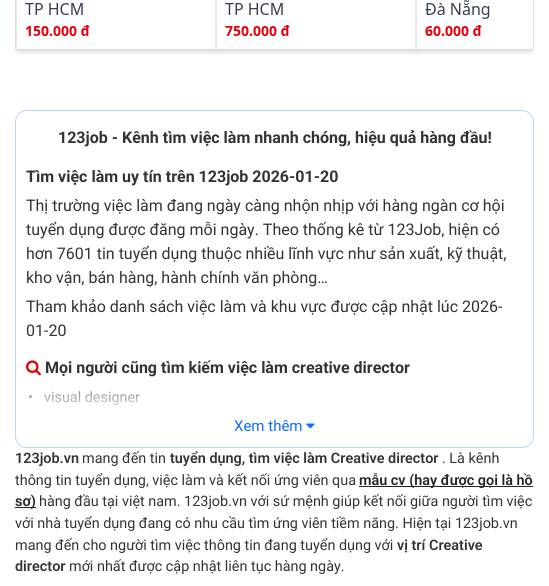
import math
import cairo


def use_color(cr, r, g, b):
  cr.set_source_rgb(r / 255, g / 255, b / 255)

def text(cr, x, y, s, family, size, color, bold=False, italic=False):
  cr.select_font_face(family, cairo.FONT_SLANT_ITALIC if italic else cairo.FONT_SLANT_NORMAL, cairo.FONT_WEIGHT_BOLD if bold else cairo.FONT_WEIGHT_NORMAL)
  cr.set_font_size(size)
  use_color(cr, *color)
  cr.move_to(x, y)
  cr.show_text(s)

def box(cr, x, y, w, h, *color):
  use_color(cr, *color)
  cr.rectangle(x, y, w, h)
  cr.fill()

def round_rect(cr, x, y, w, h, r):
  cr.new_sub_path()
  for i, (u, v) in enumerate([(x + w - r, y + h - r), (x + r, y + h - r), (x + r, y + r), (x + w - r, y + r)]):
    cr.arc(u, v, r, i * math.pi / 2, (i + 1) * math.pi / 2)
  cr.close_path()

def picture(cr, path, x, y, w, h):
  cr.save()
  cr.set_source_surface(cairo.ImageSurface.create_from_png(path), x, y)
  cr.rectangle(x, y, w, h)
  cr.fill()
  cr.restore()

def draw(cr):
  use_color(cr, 255, 255, 255)
  cr.paint()
  picture(cr, "img_01.png", 15, 0, 519, 55)
  round_rect(cr, 15.5, 110.5, 518, 337, 11.5)
  use_color(cr, 191, 211, 254)
  cr.set_line_width(1)
  cr.stroke()
  picture(cr, "img_02.png", 26, 360, 15, 16)
  picture(cr, "img_03.png", 306, 423, 9, 6)
  box(cr, 359, 486, 174, 1, 37, 37, 37)
  box(cr, 15, 507, 21, 1, 37, 37, 37)
  text(cr, 58, 143, "123job - Kênh tìm việc làm nhanh chóng, hiệu quả hàng đầu!", "Roboto", 16, (51, 51, 51), bold=True)
  text(cr, 26, 182, "Tìm việc làm uy tín trên 123job 2026-01-20", "Roboto", 16, (51, 51, 51), bold=True)
  text(cr, 26, 211, "Thị trường việc làm đang ngày càng nhộn nhịp với hàng ngàn cơ hội", "Roboto", 16, (51, 51, 51))
  text(cr, 26, 235, "tuyển dụng được đăng mỗi ngày. Theo thống kê từ 123Job, hiện có", "Roboto", 16, (51, 51, 51))
  text(cr, 26, 259, "hơn 7601 tin tuyển dụng thuộc nhiều lĩnh vực như sản xuất, kỹ thuật,", "Roboto", 16, (51, 51, 51))
  text(cr, 26, 283, "kho vận, bán hàng, hành chính văn phòng…", "Roboto", 16, (51, 51, 51))
  text(cr, 26, 312, "Tham khảo danh sách việc làm và khu vực được cập nhật lúc 2026-", "Roboto", 16, (51, 51, 51))
  text(cr, 26, 336, "01-20", "Roboto", 16, (51, 51, 51))
  text(cr, 45, 373, "Mọi người cũng tìm kiếm việc làm creative director", "Roboto", 16, (51, 51, 51), bold=True)
  text(cr, 28, 402, "•", "Roboto", 14.4, (68, 68, 68))
  text(cr, 44, 402, "visual designer", "Roboto", 14.4, (68, 68, 68))
  gradient = cairo.LinearGradient(275, 375, 275, 415)
  gradient.add_color_stop_rgba(0, 1, 1, 1, 0)
  gradient.add_color_stop_rgba(1, 1, 1, 1, 1)
  cr.set_source(gradient)
  cr.rectangle(29, 391, 112, 14)
  cr.fill()
  text(cr, 234, 431, "Xem thêm", "Roboto", 15, (13, 110, 253))
  text(cr, 15, 463, "123job.vn", "Roboto SemiBold", 14.4, (51, 51, 51))
  text(cr, 82, 463, "mang đến tin", "Roboto", 14.4, (51, 51, 51))
  text(cr, 170, 463, "tuyển dụng, tìm việc làm Creative director", "Roboto SemiBold", 14.4, (51, 51, 51))
  text(cr, 442, 463, ". Là kênh", "Roboto", 14.4, (51, 51, 51))
  text(cr, 15, 485, "thông tin tuyển dụng, việc làm và kết nối ứng viên qua", "Roboto", 14.4, (51, 51, 51))
  text(cr, 359, 485, "mẫu cv (hay được gọi là hồ", "Roboto SemiBold", 14.4, (37, 37, 37))
  text(cr, 15, 506, "sơ)", "Roboto SemiBold", 14.4, (37, 37, 37))
  text(cr, 39, 506, "hàng đầu tại việt nam. 123job.vn với sứ mệnh giúp kết nối giữa người tìm việc", "Roboto", 14.4, (51, 51, 51))
  text(cr, 15, 528, "với nhà tuyển dụng đang có nhu cầu tìm ứng viên tiềm năng. Hiện tại 123job.vn", "Roboto", 14.4, (51, 51, 51))
  text(cr, 15, 550, "mang đến cho người tìm việc thông tin đang tuyển dụng với", "Roboto", 14.4, (51, 51, 51))
  text(cr, 397, 550, "vị trí Creative", "Roboto SemiBold", 14.4, (51, 51, 51))
  text(cr, 15, 571, "director", "Roboto SemiBold", 14.4, (51, 51, 51))
  text(cr, 69, 571, "mới nhất được cập nhật liên tục hàng ngày.", "Roboto", 14.4, (51, 51, 51))


surface = cairo.ImageSurface(cairo.FORMAT_RGB24, 549, 586)
cr = cairo.Context(surface)
options = cairo.FontOptions()
options.set_hint_metrics(cairo.HINT_METRICS_OFF)
options.set_hint_style(cairo.HINT_STYLE_NONE)
cr.set_font_options(options)
cr.set_miter_limit(4)
draw(cr)
surface.write_to_png("out.png")
